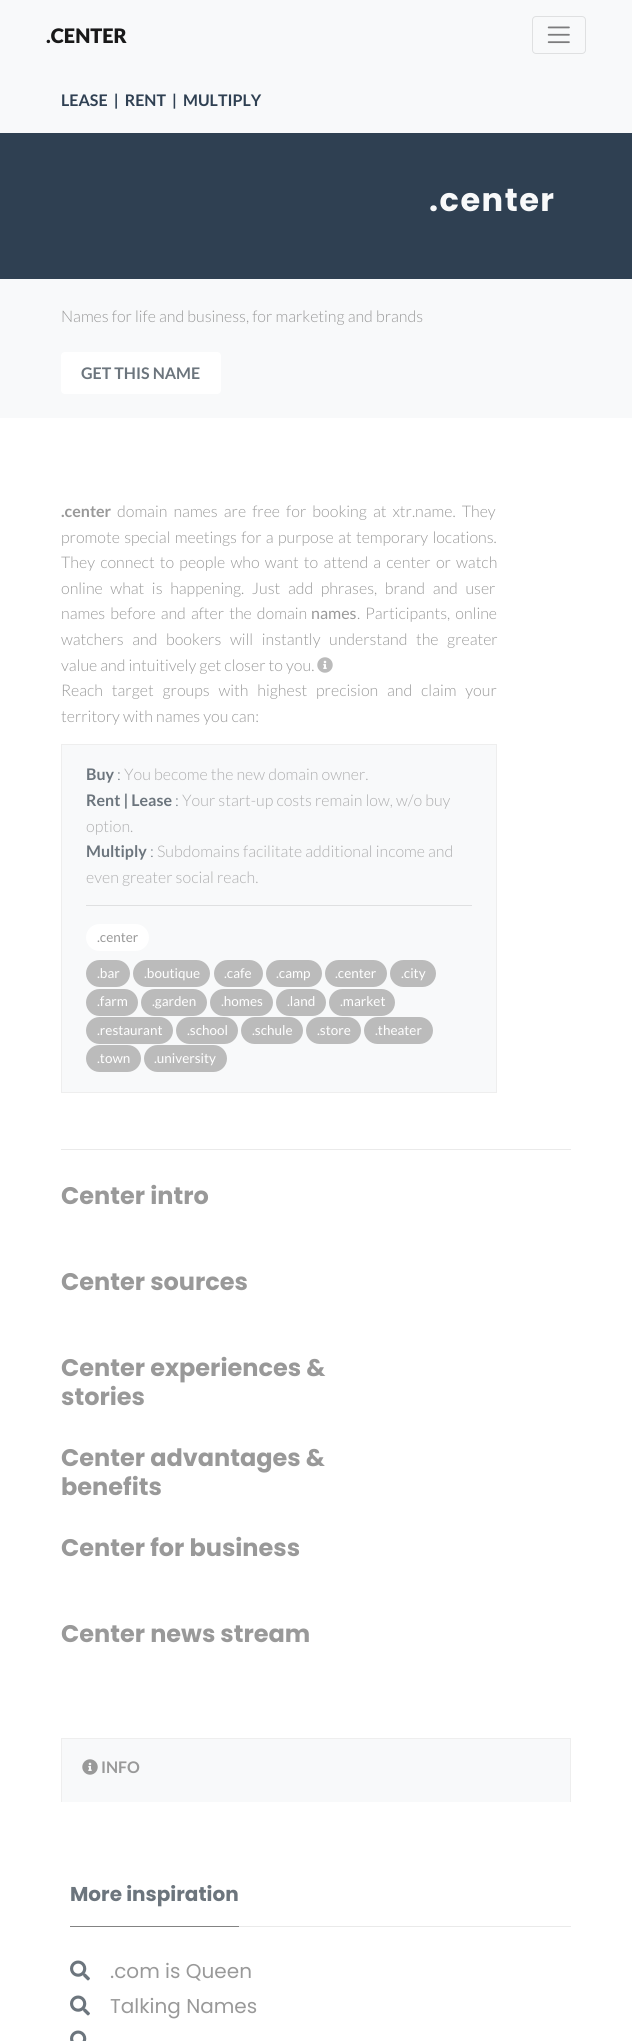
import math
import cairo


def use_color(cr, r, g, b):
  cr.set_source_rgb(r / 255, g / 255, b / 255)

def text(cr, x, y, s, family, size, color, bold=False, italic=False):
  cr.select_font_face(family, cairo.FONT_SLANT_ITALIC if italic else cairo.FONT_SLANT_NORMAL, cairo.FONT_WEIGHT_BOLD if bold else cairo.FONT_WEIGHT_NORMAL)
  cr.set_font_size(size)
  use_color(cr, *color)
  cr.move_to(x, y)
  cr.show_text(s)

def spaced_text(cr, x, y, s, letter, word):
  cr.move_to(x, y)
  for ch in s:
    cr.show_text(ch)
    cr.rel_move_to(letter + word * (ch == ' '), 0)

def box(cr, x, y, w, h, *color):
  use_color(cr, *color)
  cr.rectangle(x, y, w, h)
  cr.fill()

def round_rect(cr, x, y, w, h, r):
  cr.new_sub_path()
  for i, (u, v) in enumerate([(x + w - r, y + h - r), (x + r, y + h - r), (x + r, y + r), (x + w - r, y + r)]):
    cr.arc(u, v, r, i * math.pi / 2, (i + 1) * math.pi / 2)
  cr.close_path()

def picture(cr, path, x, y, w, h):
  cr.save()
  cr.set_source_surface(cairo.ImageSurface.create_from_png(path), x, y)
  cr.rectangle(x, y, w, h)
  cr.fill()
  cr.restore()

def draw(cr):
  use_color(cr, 255, 255, 255)
  cr.paint()
  box(cr, 0, 0, 632, 133, 248, 249, 250)
  round_rect(cr, 532.5, 16.5, 53, 37, 3.5)
  use_color(cr, 223, 224, 225)
  cr.set_line_width(1)
  cr.stroke()
  picture(cr, "img_01.png", 547, 26, 23, 18)
  box(cr, 0, 133, 632, 146, 47, 64, 82)
  box(cr, 0, 279, 632, 139, 248, 249, 250)
  use_color(cr, 255, 255, 255)
  round_rect(cr, 61, 352, 160, 42, 4)
  cr.fill()
  picture(cr, "img_02.png", 317, 657, 16, 16)
  use_color(cr, 248, 249, 250)
  cr.rectangle(61.5, 744.5, 435, 348)
  cr.fill_preserve()
  use_color(cr, 238, 238, 238)
  cr.stroke()
  box(cr, 86, 905, 386, 1, 223, 224, 225)
  use_color(cr, 255, 255, 255)
  round_rect(cr, 86, 924, 63, 27, 13.5)
  cr.fill()
  use_color(cr, 187, 187, 187)
  round_rect(cr, 86, 960, 44, 27, 13.5)
  cr.fill()
  round_rect(cr, 133, 960, 77, 27, 13.5)
  cr.fill()
  round_rect(cr, 214, 960, 49, 27, 13.5)
  cr.fill()
  round_rect(cr, 266, 960, 56, 27, 13.5)
  cr.fill()
  round_rect(cr, 325, 960, 62, 27, 13.5)
  cr.fill()
  round_rect(cr, 390, 960, 46, 27, 13.5)
  cr.fill()
  round_rect(cr, 86, 989, 52, 27, 13.5)
  cr.fill()
  round_rect(cr, 141, 989, 66, 27, 13.5)
  cr.fill()
  round_rect(cr, 210, 989, 63, 27, 13.5)
  cr.fill()
  round_rect(cr, 276, 989, 50, 27, 13.5)
  cr.fill()
  round_rect(cr, 329, 989, 66, 27, 13.5)
  cr.fill()
  round_rect(cr, 86, 1017, 87, 27, 13.5)
  cr.fill()
  round_rect(cr, 176, 1017, 62, 27, 13.5)
  cr.fill()
  round_rect(cr, 241, 1017, 62, 27, 13.5)
  cr.fill()
  round_rect(cr, 306, 1017, 55, 27, 13.5)
  cr.fill()
  round_rect(cr, 364, 1017, 69, 27, 13.5)
  cr.fill()
  round_rect(cr, 86, 1045, 55, 27, 13.5)
  cr.fill()
  round_rect(cr, 144, 1045, 83, 27, 13.5)
  cr.fill()
  box(cr, 61, 1149, 510, 1, 234, 234, 234)
  box(cr, 61, 1738, 510, 1, 238, 238, 238)
  box(cr, 570, 1738, 1, 64, 238, 238, 238)
  box(cr, 61, 1738, 1, 64, 238, 238, 238)
  box(cr, 62, 1739, 508, 63, 248, 249, 250)
  picture(cr, "img_03.png", 82, 1759, 16, 16)
  box(cr, 239, 1926, 332, 1, 234, 234, 234)
  box(cr, 70, 1926, 169, 1, 131, 131, 131)
  picture(cr, "img_04.png", 70, 1960, 20, 21)
  picture(cr, "img_04.png", 70, 1995, 20, 21)
  picture(cr, "img_05.png", 70, 2030, 17, 11)
  text(cr, 46, 43, ".CENTER", "Lato Black", 20, (25, 25, 25))
  text(cr, 61, 106, "LEASE  |  RENT  |  MULTIPLY", "Lato", 16, (47, 64, 82), bold=True)
  cr.select_font_face("Poppins", cairo.FONT_SLANT_NORMAL, cairo.FONT_WEIGHT_BOLD)
  cr.set_font_size(32)
  use_color(cr, 248, 249, 250)
  spaced_text(cr, 429, 211, ".center", 1.5, 0)
  text(cr, 61, 322, "Names for life and business, for marketing and brands", "Lato Light", 16, (153, 153, 153))
  text(cr, 81, 379, "GET THIS NAME", "Lato", 16, (108, 117, 125), bold=True)
  text(cr, 61, 517, ".center", "Lato", 16, (153, 153, 153), bold=True)
  cr.select_font_face("Lato Light")
  spaced_text(cr, 117, 517, "domain names are free for booking at xtr.name. They", 0, 3)
  spaced_text(cr, 61, 543, "promote special meetings for a purpose at temporary locations.", 0, 1.25)
  spaced_text(cr, 61, 568, "They connect to people who want to attend a center or watch", 0, 2.1)
  spaced_text(cr, 61, 594, "online what is happening. Just add phrases, brand and user", 0, 4.5)
  spaced_text(cr, 61, 619, "names before and after the domain", 0, 2)
  text(cr, 311, 619, "names", "Lato", 16, (153, 153, 153))
  cr.select_font_face("Lato Light")
  spaced_text(cr, 357, 619, ". Participants, online", 0, 2)
  spaced_text(cr, 61, 645, "watchers and bookers will instantly understand the greater", 0, 5.5)
  text(cr, 61, 671, "value and intuitively get closer to you.", "Lato Light", 16, (153, 153, 153))
  spaced_text(cr, 61, 696, "Reach target groups with highest precision and claim your", 0, 5.75)
  text(cr, 61, 722, "territory with names you can:", "Lato Light", 16, (153, 153, 153))
  text(cr, 86, 780, "Buy", "Lato", 16, (108, 117, 125), bold=True)
  text(cr, 117, 780, ":", "Lato Light", 16, (108, 117, 125))
  text(cr, 124, 780, "You become the new domain owner.", "Lato Light", 16, (174, 174, 175))
  text(cr, 86, 806, "Rent | Lease", "Lato", 16, (108, 117, 125), bold=True)
  text(cr, 175, 806, ":", "Lato Light", 16, (108, 117, 125))
  text(cr, 182, 806, "Your start-up costs remain low, w/o buy", "Lato Light", 16, (174, 174, 175))
  text(cr, 86, 832, "option.", "Lato Light", 16, (174, 174, 175))
  text(cr, 86, 857, "Multiply", "Lato", 16, (108, 117, 125), bold=True)
  text(cr, 150, 857, ":", "Lato Light", 16, (108, 117, 125))
  text(cr, 157, 857, "Subdomains facilitate additional income and", "Lato Light", 16, (174, 174, 175))
  text(cr, 86, 883, "even greater social reach.", "Lato Light", 16, (174, 174, 175))
  text(cr, 97, 942, ".center", "Lato", 13.5, (153, 153, 153))
  text(cr, 97, 978, ".bar", "Lato", 13.5, (255, 255, 255))
  text(cr, 144, 978, ".boutique", "Lato", 13.5, (255, 255, 255))
  text(cr, 224, 978, ".cafe", "Lato", 13.5, (255, 255, 255))
  text(cr, 276, 978, ".camp", "Lato", 13.5, (255, 255, 255))
  text(cr, 335, 978, ".center", "Lato", 13.5, (255, 255, 255))
  text(cr, 401, 978, ".city", "Lato", 13.5, (255, 255, 255))
  text(cr, 97, 1006, ".farm", "Lato", 13.5, (255, 255, 255))
  text(cr, 152, 1006, ".garden", "Lato", 13.5, (255, 255, 255))
  text(cr, 221, 1006, ".homes", "Lato", 13.5, (255, 255, 255))
  text(cr, 287, 1006, ".land", "Lato", 13.5, (255, 255, 255))
  text(cr, 340, 1006, ".market", "Lato", 13.5, (255, 255, 255))
  text(cr, 97, 1035, ".restaurant", "Lato", 13.5, (255, 255, 255))
  text(cr, 187, 1035, ".school", "Lato", 13.5, (255, 255, 255))
  text(cr, 252, 1035, ".schule", "Lato", 13.5, (255, 255, 255))
  text(cr, 317, 1035, ".store", "Lato", 13.5, (255, 255, 255))
  text(cr, 375, 1035, ".theater", "Lato", 13.5, (255, 255, 255))
  text(cr, 97, 1063, ".town", "Lato", 13.5, (255, 255, 255))
  text(cr, 154, 1063, ".university", "Lato", 13.5, (255, 255, 255))
  text(cr, 61, 1204, "Center intro", "Poppins", 24, (153, 153, 153), bold=True)
  text(cr, 61, 1290, "Center sources", "Poppins", 24, (153, 153, 153), bold=True)
  text(cr, 61, 1376, "Center experiences &", "Poppins", 24, (153, 153, 153), bold=True)
  text(cr, 61, 1405, "stories", "Poppins", 24, (153, 153, 153), bold=True)
  text(cr, 61, 1466, "Center advantages &", "Poppins", 24, (153, 153, 153), bold=True)
  text(cr, 61, 1495, "benefits", "Poppins", 24, (153, 153, 153), bold=True)
  text(cr, 61, 1556, "Center for business", "Poppins", 24, (153, 153, 153), bold=True)
  text(cr, 61, 1642, "Center news stream", "Poppins", 24, (153, 153, 153), bold=True)
  text(cr, 101, 1773, "INFO", "Lato", 16, (153, 153, 153), bold=True)
  text(cr, 70, 1901, "More inspiration", "Poppins", 20, (108, 117, 125), bold=True)
  text(cr, 110, 1978, ".com is Queen", "Poppins", 20, (153, 153, 153))
  text(cr, 110, 2013, "Talking Names", "Poppins", 20, (153, 153, 153))


surface = cairo.ImageSurface(cairo.FORMAT_RGB24, 632, 2041)
cr = cairo.Context(surface)
options = cairo.FontOptions()
options.set_hint_metrics(cairo.HINT_METRICS_OFF)
options.set_hint_style(cairo.HINT_STYLE_NONE)
cr.set_font_options(options)
cr.set_miter_limit(4)
draw(cr)
surface.write_to_png("out.png")
